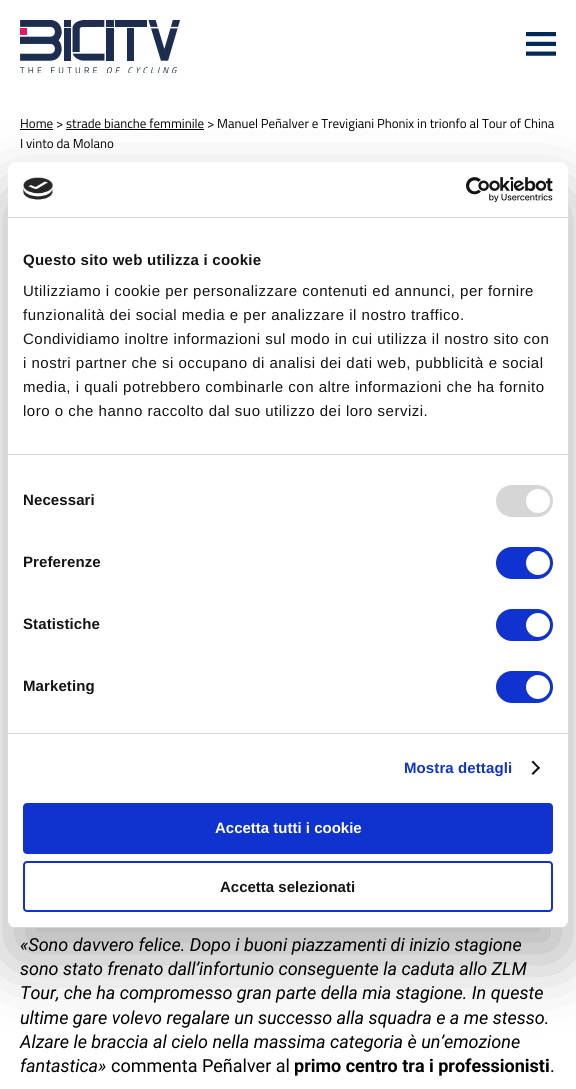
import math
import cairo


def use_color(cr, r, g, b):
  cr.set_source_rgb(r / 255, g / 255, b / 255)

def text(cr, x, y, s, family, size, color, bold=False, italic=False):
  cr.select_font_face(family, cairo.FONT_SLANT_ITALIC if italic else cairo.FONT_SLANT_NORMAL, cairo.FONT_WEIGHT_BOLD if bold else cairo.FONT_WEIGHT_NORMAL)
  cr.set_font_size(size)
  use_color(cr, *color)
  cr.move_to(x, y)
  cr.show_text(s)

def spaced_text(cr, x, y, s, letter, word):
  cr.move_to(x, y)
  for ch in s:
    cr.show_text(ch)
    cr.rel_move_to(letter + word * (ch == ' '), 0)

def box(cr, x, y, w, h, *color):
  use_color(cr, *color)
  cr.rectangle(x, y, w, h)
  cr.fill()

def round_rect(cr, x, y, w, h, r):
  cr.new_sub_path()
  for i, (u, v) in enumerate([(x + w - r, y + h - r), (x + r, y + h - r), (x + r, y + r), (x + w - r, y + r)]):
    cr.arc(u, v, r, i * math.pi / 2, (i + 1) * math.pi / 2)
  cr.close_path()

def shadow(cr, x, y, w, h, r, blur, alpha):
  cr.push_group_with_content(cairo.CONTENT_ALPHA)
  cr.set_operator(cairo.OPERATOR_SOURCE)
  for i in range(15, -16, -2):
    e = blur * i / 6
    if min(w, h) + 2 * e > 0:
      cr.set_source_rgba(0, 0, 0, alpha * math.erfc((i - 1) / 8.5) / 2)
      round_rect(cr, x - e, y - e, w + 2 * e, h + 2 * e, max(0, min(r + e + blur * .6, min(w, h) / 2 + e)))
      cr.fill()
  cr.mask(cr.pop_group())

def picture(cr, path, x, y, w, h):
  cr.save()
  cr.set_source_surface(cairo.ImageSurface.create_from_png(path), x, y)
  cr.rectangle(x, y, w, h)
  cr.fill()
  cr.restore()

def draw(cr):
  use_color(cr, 255, 255, 255)
  cr.paint()
  picture(cr, "img_01.png", 20, 20, 160, 53)
  picture(cr, "img_02.png", 526, 32, 30, 24)
  box(cr, 20, 129, 33, 1, 0, 0, 0)
  box(cr, 66, 129, 138, 1, 0, 0, 0)
  use_color(cr, 0, 0, 0)
  shadow(cr, 8, 194, 560, 766, 8, 34, 0.3)
  use_color(cr, 255, 255, 255)
  round_rect(cr, 8, 162, 560, 766, 8)
  cr.fill()
  box(cr, 8, 217, 560, 1, 214, 214, 214)
  picture(cr, "img_03.png", 23, 177, 30, 23)
  picture(cr, "img_04.png", 466, 177, 87, 25)
  box(cr, 8, 454, 560, 1, 214, 214, 214)
  box(cr, 8, 733, 560, 1, 214, 214, 214)
  round_rect(cr, 496, 485, 57, 32, 16)
  cr.fill()
  use_color(cr, 255, 255, 255)
  cr.arc(538, 501, 12, 0, 2 * math.pi)
  cr.fill()
  use_color(cr, 16, 50, 207)
  round_rect(cr, 496, 547, 57, 32, 16)
  cr.fill()
  use_color(cr, 255, 255, 255)
  cr.arc(538, 563, 12, 0, 2 * math.pi)
  cr.fill()
  use_color(cr, 16, 50, 207)
  round_rect(cr, 496, 609, 57, 32, 16)
  cr.fill()
  use_color(cr, 255, 255, 255)
  cr.arc(538, 625, 12, 0, 2 * math.pi)
  cr.fill()
  use_color(cr, 16, 50, 207)
  round_rect(cr, 496, 671, 57, 32, 16)
  cr.fill()
  use_color(cr, 255, 255, 255)
  cr.arc(538, 687, 12, 0, 2 * math.pi)
  cr.fill()
  use_color(cr, 20, 20, 20)
  cr.new_path()
  cr.move_to(533, 760.5)
  cr.line_to(540, 768)
  cr.line_to(538.5, 769)
  cr.line_to(531.5, 762)
  cr.close_path()
  cr.fill()
  cr.new_path()
  cr.move_to(538.5, 766.5)
  cr.line_to(540, 768)
  cr.line_to(533, 775)
  cr.line_to(531.5, 773.5)
  cr.close_path()
  cr.fill()
  cr.save()
  round_rect(cr, 8, 162, 560, 766, 8)
  cr.clip()
  box(cr, 8, 927, 560, 1, 214, 214, 214)
  cr.restore()
  use_color(cr, 16, 50, 207)
  round_rect(cr, 24, 804, 528, 49, 3)
  cr.fill_preserve()
  cr.stroke()
  round_rect(cr, 24, 862, 528, 49, 3)
  cr.stroke()
  text(cr, 20, 128, "Home > strade bianche femminile > Manuel Peñalver e Trevigiani Phonix in trionfo al Tour of China", "Titillium Web", 13, (0, 0, 0))
  text(cr, 20, 148, "I vinto da Molano", "Titillium Web", 13, (0, 0, 0))
  text(cr, 20, 951, "«Sono davvero felice. Dopo i buoni piazzamenti di inizio stagione", "Roboto", 18, (0, 0, 0), italic=True)
  text(cr, 20, 975, "sono stato frenato dall’infortunio conseguente la caduta allo ZLM", "Roboto", 18, (0, 0, 0), italic=True)
  text(cr, 20, 999, "Tour, che ha compromesso gran parte della mia stagione. In queste", "Roboto", 18, (0, 0, 0), italic=True)
  text(cr, 20, 1024, "ultime gare volevo regalare un successo alla squadra e a me stesso.", "Roboto", 18, (0, 0, 0), italic=True)
  text(cr, 20, 1048, "Alzare le braccia al cielo nella massima categoria è un’emozione", "Roboto", 18, (0, 0, 0), italic=True)
  text(cr, 20, 1072, "fantastica»", "Roboto", 18, (0, 0, 0), italic=True)
  text(cr, 111, 1072, "commenta Peñalver al", "Roboto", 18, (0, 0, 0))
  text(cr, 294, 1072, "primo centro tra i professionisti", "Roboto", 18, (0, 0, 0), bold=True)
  text(cr, 550, 1072, ".", "Roboto", 18, (0, 0, 0))
  cr.select_font_face("Liberation Sans", cairo.FONT_SLANT_NORMAL, cairo.FONT_WEIGHT_BOLD)
  cr.set_font_size(15)
  use_color(cr, 20, 20, 20)
  spaced_text(cr, 23, 265, "Questo sito web utilizza i cookie", 0.25, 0)
  cr.select_font_face("Liberation Sans")
  spaced_text(cr, 23, 296, "Utilizziamo i cookie per personalizzare contenuti ed annunci, per fornire", 0.5, 0)
  spaced_text(cr, 23, 320, "funzionalità dei social media e per analizzare il nostro traffico.", 0.5, 0)
  spaced_text(cr, 23, 344, "Condividiamo inoltre informazioni sul modo in cui utilizza il nostro sito con", 0.5, 0)
  spaced_text(cr, 23, 368, "i nostri partner che si occupano di analisi dei dati web, pubblicità e social", 0.5, 0)
  spaced_text(cr, 23, 392, "media, i quali potrebbero combinarle con altre informazioni che ha fornito", 0.5, 0)
  spaced_text(cr, 23, 416, "loro o che hanno raccolto dal suo utilizzo dei loro servizi.", 0.5, 0)
  cr.select_font_face("Liberation Sans", cairo.FONT_SLANT_NORMAL, cairo.FONT_WEIGHT_BOLD)
  spaced_text(cr, 23, 505, "Necessari", 0.1, 0)
  spaced_text(cr, 23, 567, "Preferenze", 0.1, 0)
  spaced_text(cr, 23, 629, "Statistiche", 0.1, 0)
  spaced_text(cr, 23, 691, "Marketing", 0.1, 0)
  use_color(cr, 16, 50, 207)
  spaced_text(cr, 404, 773, "Mostra dettagli", 0.1, 0)
  text(cr, 215, 833, "Accetta tutti i cookie", "Liberation Sans", 15, (255, 255, 255), bold=True)
  text(cr, 220, 892, "Accetta selezionati", "Liberation Sans", 15, (20, 20, 20), bold=True)


surface = cairo.ImageSurface(cairo.FORMAT_RGB24, 576, 1089)
cr = cairo.Context(surface)
options = cairo.FontOptions()
options.set_hint_metrics(cairo.HINT_METRICS_OFF)
options.set_hint_style(cairo.HINT_STYLE_NONE)
cr.set_font_options(options)
cr.set_miter_limit(4)
draw(cr)
surface.write_to_png("out.png")
